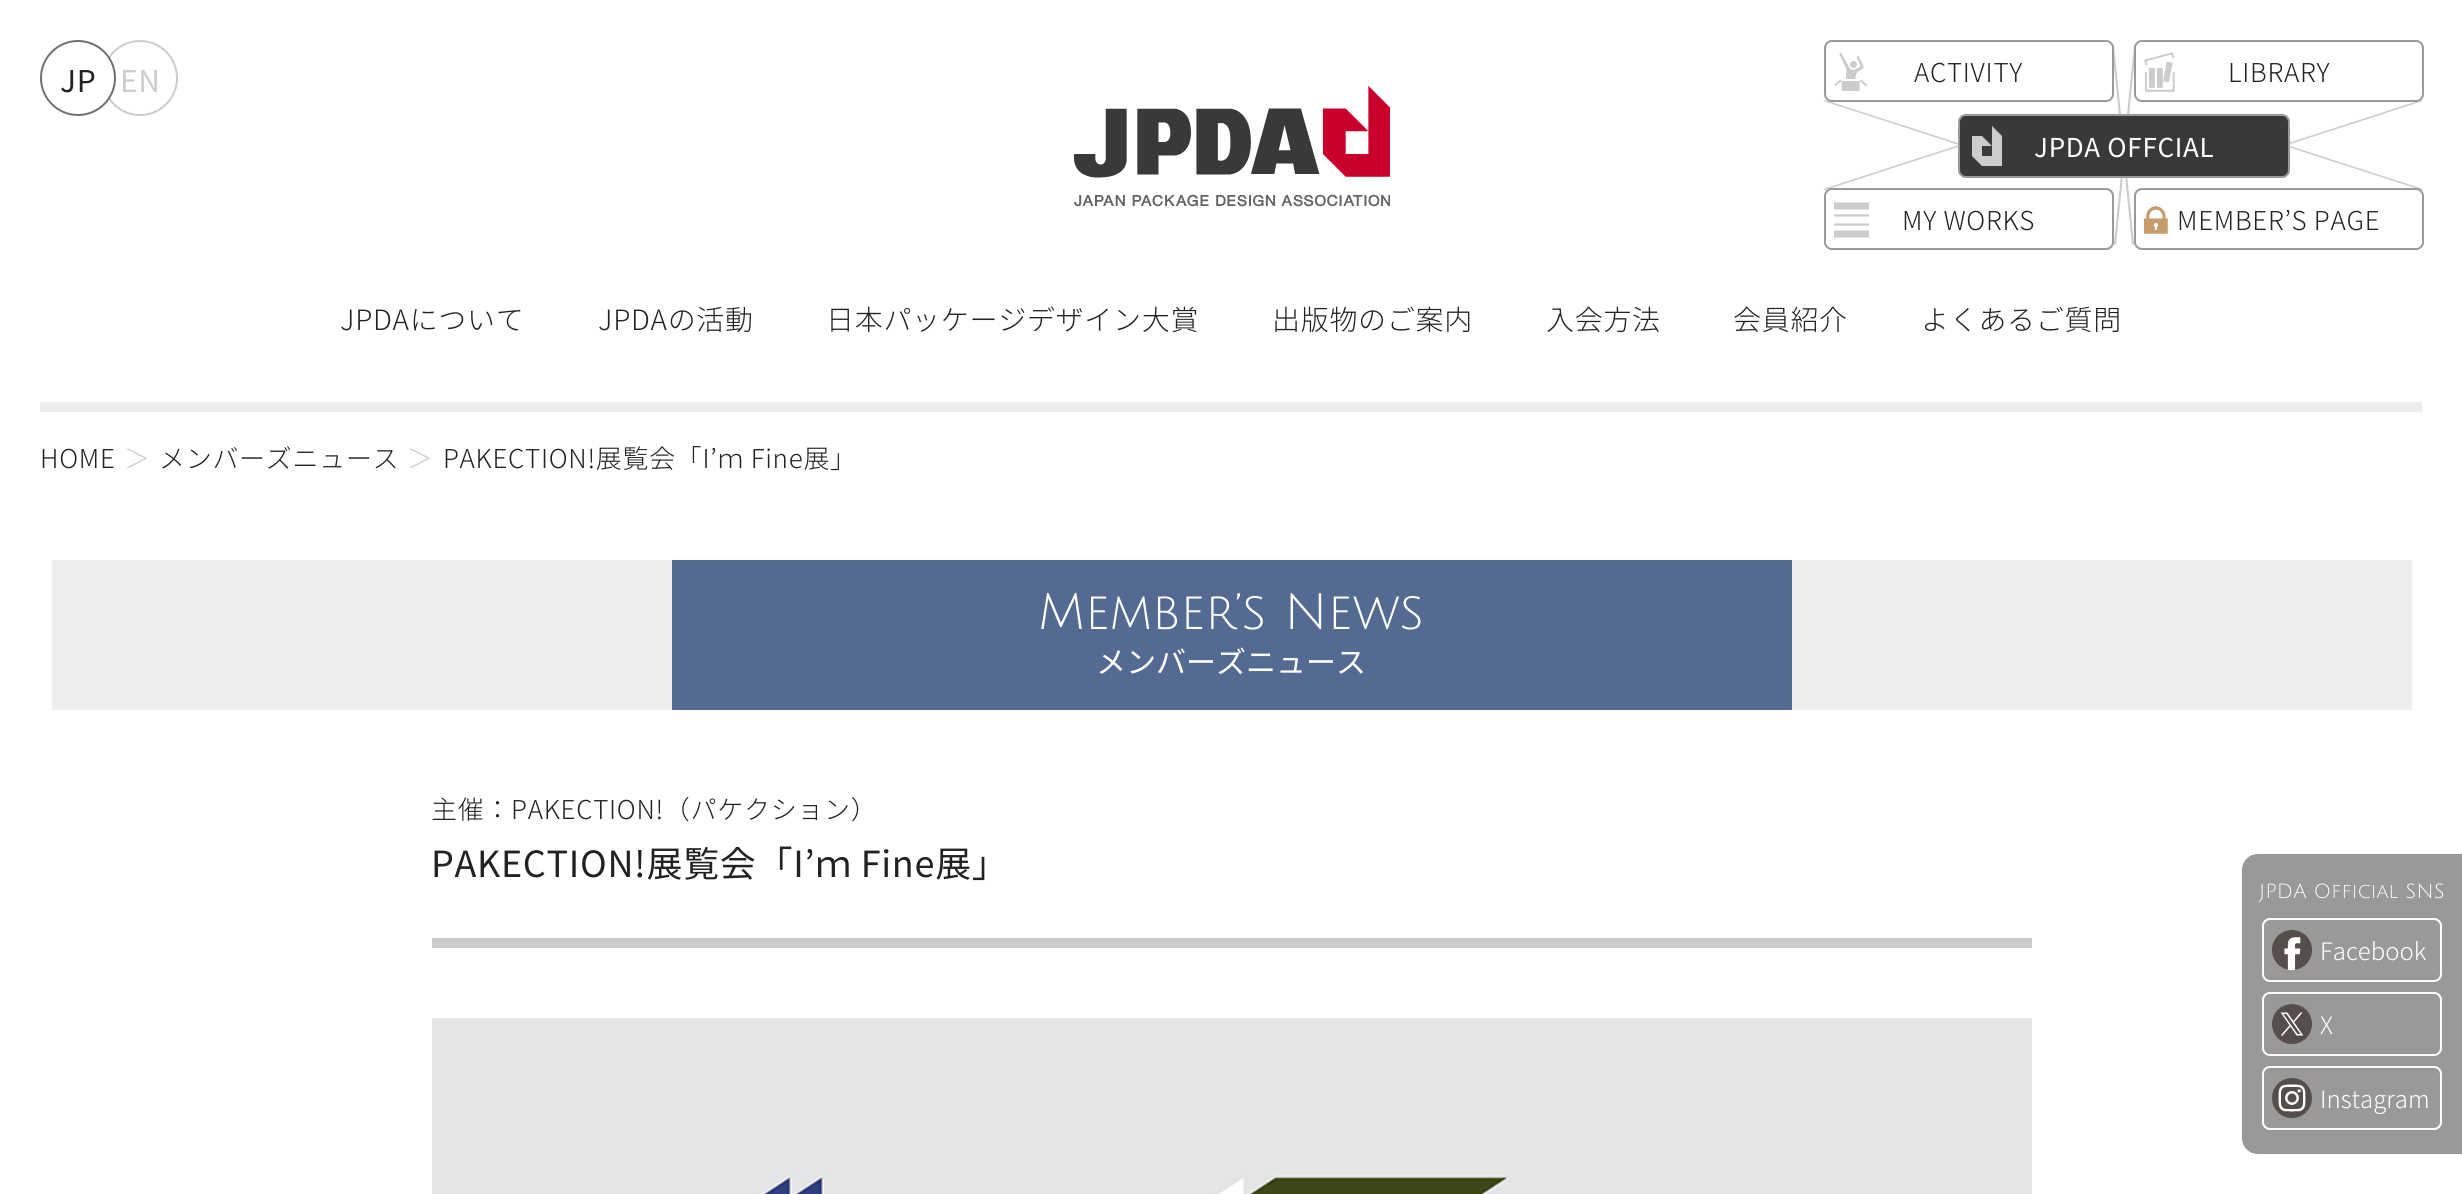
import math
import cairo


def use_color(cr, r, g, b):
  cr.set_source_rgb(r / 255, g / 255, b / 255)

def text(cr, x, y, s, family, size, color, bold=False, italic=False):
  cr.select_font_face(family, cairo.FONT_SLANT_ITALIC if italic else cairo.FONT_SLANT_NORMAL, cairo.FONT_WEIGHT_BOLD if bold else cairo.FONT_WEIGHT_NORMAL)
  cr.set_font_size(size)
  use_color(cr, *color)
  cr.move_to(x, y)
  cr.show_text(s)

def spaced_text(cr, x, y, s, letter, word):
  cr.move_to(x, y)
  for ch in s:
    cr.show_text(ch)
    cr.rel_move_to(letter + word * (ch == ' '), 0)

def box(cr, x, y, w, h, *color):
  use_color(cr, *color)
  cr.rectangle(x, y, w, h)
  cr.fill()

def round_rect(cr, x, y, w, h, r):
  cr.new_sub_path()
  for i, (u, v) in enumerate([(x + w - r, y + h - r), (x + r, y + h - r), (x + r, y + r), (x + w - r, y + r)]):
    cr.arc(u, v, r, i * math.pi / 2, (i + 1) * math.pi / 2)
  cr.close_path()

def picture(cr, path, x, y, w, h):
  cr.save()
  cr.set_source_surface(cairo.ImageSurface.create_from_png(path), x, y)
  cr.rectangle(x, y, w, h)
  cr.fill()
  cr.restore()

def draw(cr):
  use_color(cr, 255, 255, 255)
  cr.paint()
  cr.arc(140, 78, 37, 0, 2 * math.pi)
  use_color(cr, 204, 204, 204)
  cr.stroke()
  use_color(cr, 255, 255, 255)
  cr.arc(78, 78, 37, 0, 2 * math.pi)
  cr.fill_preserve()
  use_color(cr, 112, 112, 112)
  cr.stroke()
  use_color(cr, 204, 204, 204)
  cr.new_path()
  cr.move_to(2112, 46)
  cr.line_to(2114, 45)
  cr.line_to(2134, 244)
  cr.line_to(2132, 245)
  cr.close_path()
  cr.fill()
  cr.new_path()
  cr.move_to(1825, 100)
  cr.line_to(1964, 145)
  cr.line_to(1962, 146)
  cr.line_to(1823, 101)
  cr.close_path()
  cr.fill()
  use_color(cr, 255, 255, 255)
  round_rect(cr, 1825, 41, 288, 60, 7)
  cr.fill_preserve()
  use_color(cr, 153, 153, 153)
  cr.stroke()
  picture(cr, "img_01.png", 1834, 53, 33, 38)
  use_color(cr, 204, 204, 204)
  cr.new_path()
  cr.move_to(2134, 45)
  cr.line_to(2136, 46)
  cr.line_to(2116, 245)
  cr.line_to(2114, 244)
  cr.close_path()
  cr.fill()
  cr.new_path()
  cr.move_to(2421, 190)
  cr.line_to(2282, 145)
  cr.line_to(2284, 144)
  cr.line_to(2423, 189)
  cr.close_path()
  cr.fill()
  cr.new_path()
  cr.move_to(2284, 146)
  cr.line_to(2282, 145)
  cr.line_to(2421, 100)
  cr.line_to(2423, 101)
  cr.close_path()
  cr.fill()
  use_color(cr, 255, 255, 255)
  round_rect(cr, 2135, 41, 288, 60, 7)
  cr.fill_preserve()
  use_color(cr, 153, 153, 153)
  cr.stroke()
  picture(cr, "img_02.png", 2144, 52, 31, 40)
  use_color(cr, 204, 204, 204)
  cr.new_path()
  cr.move_to(1962, 144)
  cr.line_to(1964, 145)
  cr.line_to(1825, 190)
  cr.line_to(1823, 189)
  cr.close_path()
  cr.fill()
  use_color(cr, 59, 57, 56)
  round_rect(cr, 1959, 115, 330, 62, 7)
  cr.fill_preserve()
  use_color(cr, 153, 153, 153)
  cr.stroke()
  picture(cr, "img_03.png", 1972, 126, 30, 40)
  use_color(cr, 255, 255, 255)
  round_rect(cr, 1825, 189, 288, 60, 7)
  cr.fill_preserve()
  use_color(cr, 153, 153, 153)
  cr.stroke()
  picture(cr, "img_04.png", 1834, 202, 35, 36)
  use_color(cr, 255, 255, 255)
  round_rect(cr, 2135, 189, 288, 60, 7)
  cr.fill_preserve()
  use_color(cr, 153, 153, 153)
  cr.stroke()
  picture(cr, "img_05.png", 2144, 206, 24, 28)
  picture(cr, "img_06.png", 1074, 86, 316, 121)
  box(cr, 40, 402, 2382, 10, 237, 237, 237)
  box(cr, 52, 560, 2360, 150, 237, 237, 237)
  box(cr, 672, 560, 1120, 150, 85, 106, 147)
  box(cr, 432, 938, 1600, 10, 204, 204, 204)
  picture(cr, "img_07.png", 432, 1018, 1600, 176)
  use_color(cr, 153, 153, 153)
  cr.new_path()
  cr.move_to(2258, 854)
  cr.line_to(2462, 854)
  cr.line_to(2462, 1154)
  cr.line_to(2258, 1154)
  cr.curve_to(2249, 1154, 2242, 1147, 2242, 1138)
  cr.line_to(2242, 870)
  cr.curve_to(2242, 861, 2249, 854, 2258, 854)
  cr.close_path()
  cr.fill()
  round_rect(cr, 2263, 919, 178, 62, 7)
  use_color(cr, 255, 255, 255)
  cr.stroke()
  picture(cr, "img_08.png", 2272, 930, 40, 40)
  round_rect(cr, 2263, 993, 178, 62, 7)
  cr.stroke()
  picture(cr, "img_09.png", 2272, 1004, 40, 40)
  round_rect(cr, 2263, 1067, 178, 62, 7)
  cr.stroke()
  picture(cr, "img_10.png", 2272, 1078, 40, 40)
  cr.select_font_face("Noto Sans JP")
  cr.set_font_size(30)
  use_color(cr, 34, 34, 34)
  spaced_text(cr, 60, 92, "JP", 0.7, 0)
  use_color(cr, 204, 204, 204)
  spaced_text(cr, 120, 92, "EN", 0.7, 0)
  cr.select_font_face("Noto Sans JP Light")
  cr.set_font_size(26)
  use_color(cr, 34, 34, 34)
  spaced_text(cr, 1914, 82, "ACTIVITY", 0.7, 0)
  spaced_text(cr, 2228, 82, "LIBRARY", 0.7, 0)
  cr.select_font_face("Noto Sans JP")
  use_color(cr, 255, 255, 255)
  spaced_text(cr, 2034, 157, "JPDA OFFCIAL", 0.7, 0)
  cr.select_font_face("Noto Sans JP Light")
  use_color(cr, 34, 34, 34)
  spaced_text(cr, 1902, 230, "MY WORKS", 0.7, 0)
  spaced_text(cr, 2177, 230, "MEMBER’S PAGE", 0.7, 0)
  cr.set_font_size(28)
  spaced_text(cr, 340, 330, "JPDAについて", 0.7, 0)
  spaced_text(cr, 598, 330, "JPDAの活動", 0.7, 0)
  spaced_text(cr, 826, 330, "日本パッケージデザイン大賞", 0.7, 0)
  spaced_text(cr, 1272, 330, "出版物のご案内", 0.7, 0)
  spaced_text(cr, 1546, 330, "入会方法", 0.7, 0)
  spaced_text(cr, 1733, 330, "会員紹介", 0.7, 0)
  spaced_text(cr, 1921, 330, "よくあるご質問", 0.7, 0)
  cr.set_font_size(26)
  spaced_text(cr, 40, 468, "HOME", 0.7, 0)
  use_color(cr, 204, 204, 204)
  spaced_text(cr, 124, 468, "＞", 0.7, 0)
  use_color(cr, 34, 34, 34)
  spaced_text(cr, 159, 468, "メンバーズニュース", 0.7, 0)
  use_color(cr, 204, 204, 204)
  spaced_text(cr, 407, 468, "＞", 0.7, 0)
  use_color(cr, 34, 34, 34)
  spaced_text(cr, 443, 468, "PAKECTION!展覧会「I’ｍ Fine展」", 0.7, 0)
  text(cr, 1038, 629, "Member’s News", "Julius Sans One", 50, (255, 255, 255))
  text(cr, 1096, 673, "メンバーズニュース", "Noto Sans JP", 30, (255, 255, 255))
  cr.select_font_face("Noto Sans JP Light")
  cr.set_font_size(26)
  use_color(cr, 34, 34, 34)
  spaced_text(cr, 431, 819, "主催：PAKECTION!（パケクション）", 0.7, 0)
  cr.select_font_face("Noto Sans JP")
  cr.set_font_size(36)
  spaced_text(cr, 431, 877, "PAKECTION!展覧会「I’ｍ Fine展」", 0.7, 0)
  text(cr, 2259, 898, "JPDA Official SNS", "Julius Sans One", 20, (255, 255, 255))
  text(cr, 2320, 960, "Facebook", "Noto Sans JP Light", 24, (255, 255, 255))
  text(cr, 2320, 1034, "X", "Noto Sans JP Light", 24, (255, 255, 255))
  text(cr, 2320, 1108, "Instagram", "Noto Sans JP Light", 24, (255, 255, 255))


surface = cairo.ImageSurface(cairo.FORMAT_RGB24, 2462, 1194)
cr = cairo.Context(surface)
options = cairo.FontOptions()
options.set_hint_metrics(cairo.HINT_METRICS_OFF)
options.set_hint_style(cairo.HINT_STYLE_NONE)
cr.set_font_options(options)
cr.set_miter_limit(4)
draw(cr)
surface.write_to_png("out.png")
